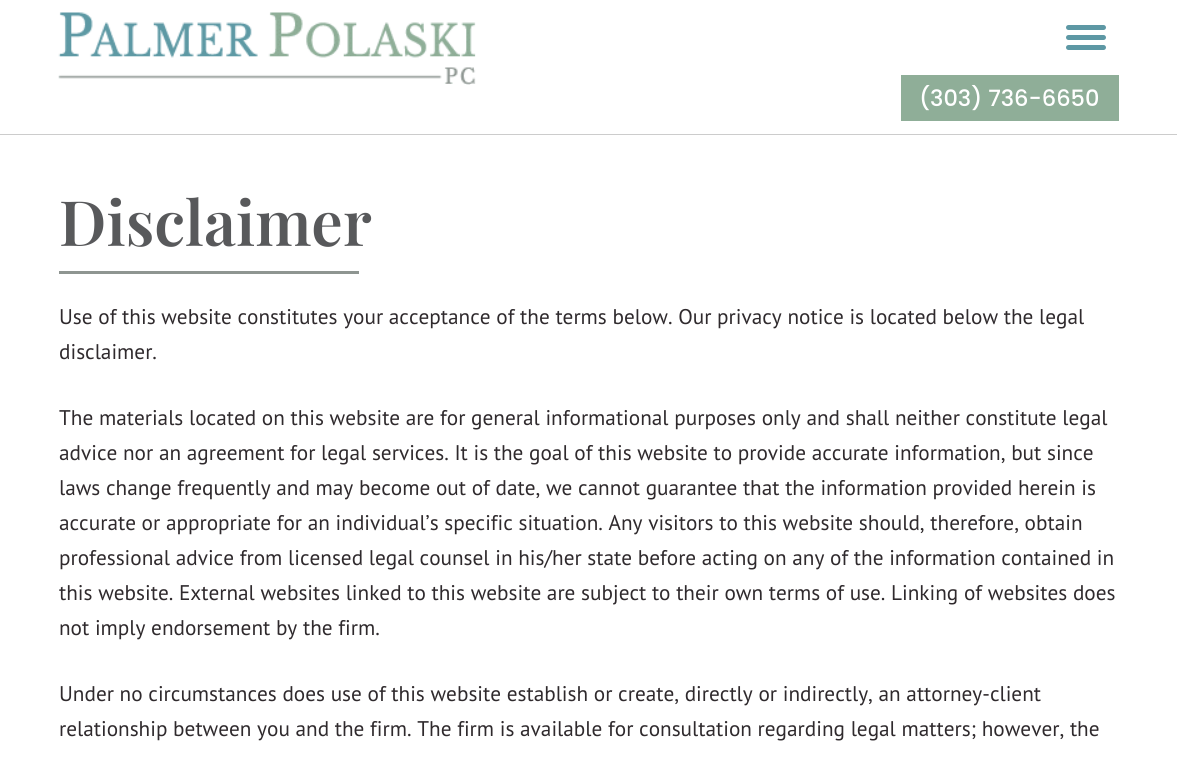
import math
import cairo


def use_color(cr, r, g, b):
  cr.set_source_rgb(r / 255, g / 255, b / 255)

def text(cr, x, y, s, family, size, color, bold=False, italic=False):
  cr.select_font_face(family, cairo.FONT_SLANT_ITALIC if italic else cairo.FONT_SLANT_NORMAL, cairo.FONT_WEIGHT_BOLD if bold else cairo.FONT_WEIGHT_NORMAL)
  cr.set_font_size(size)
  use_color(cr, *color)
  cr.move_to(x, y)
  cr.show_text(s)

def box(cr, x, y, w, h, *color):
  use_color(cr, *color)
  cr.rectangle(x, y, w, h)
  cr.fill()

def round_rect(cr, x, y, w, h, r):
  cr.new_sub_path()
  for i, (u, v) in enumerate([(x + w - r, y + h - r), (x + r, y + h - r), (x + r, y + r), (x + w - r, y + r)]):
    cr.arc(u, v, r, i * math.pi / 2, (i + 1) * math.pi / 2)
  cr.close_path()

def picture(cr, path, x, y, w, h):
  cr.save()
  cr.set_source_surface(cairo.ImageSurface.create_from_png(path), x, y)
  cr.rectangle(x, y, w, h)
  cr.fill()
  cr.restore()

def draw(cr):
  use_color(cr, 255, 255, 255)
  cr.paint()
  box(cr, 0, 134, 1177, 1, 204, 204, 204)
  picture(cr, "img_01.png", 58, 12, 418, 73)
  use_color(cr, 93, 152, 164)
  round_rect(cr, 1066, 25, 40, 5, 2.5)
  cr.fill()
  round_rect(cr, 1066, 35, 40, 5, 2.5)
  cr.fill()
  round_rect(cr, 1066, 45, 40, 5, 2.5)
  cr.fill()
  box(cr, 901, 75, 218, 46, 143, 174, 152)
  box(cr, 59, 271, 300, 3, 142, 149, 145)
  text(cr, 919, 106, "(303) 736-6650", "Poppins Medium", 22.5, (255, 255, 255))
  text(cr, 59, 246, "Disclaimer", "Playfair Display SemiBold", 62.5, (88, 89, 91))
  text(cr, 59, 324, "Use of this website constitutes your acceptance of the terms below. Our privacy notice is located below the legal", "PT Sans", 21.25, (47, 42, 45))
  text(cr, 59, 359, "disclaimer.", "PT Sans", 21.25, (47, 42, 45))
  text(cr, 59, 425, "The materials located on this website are for general informational purposes only and shall neither constitute legal", "PT Sans", 21.25, (47, 42, 45))
  text(cr, 59, 460, "advice nor an agreement for legal services. It is the goal of this website to provide accurate information, but since", "PT Sans", 21.25, (47, 42, 45))
  text(cr, 59, 495, "laws change frequently and may become out of date, we cannot guarantee that the information provided herein is", "PT Sans", 21.25, (47, 42, 45))
  text(cr, 59, 530, "accurate or appropriate for an individual’s specific situation. Any visitors to this website should, therefore, obtain", "PT Sans", 21.25, (47, 42, 45))
  text(cr, 59, 565, "professional advice from licensed legal counsel in his/her state before acting on any of the information contained in", "PT Sans", 21.25, (47, 42, 45))
  text(cr, 59, 600, "this website. External websites linked to this website are subject to their own terms of use. Linking of websites does", "PT Sans", 21.25, (47, 42, 45))
  text(cr, 59, 635, "not imply endorsement by the firm.", "PT Sans", 21.25, (47, 42, 45))
  text(cr, 59, 701, "Under no circumstances does use of this website establish or create, directly or indirectly, an attorney-client", "PT Sans", 21.25, (47, 42, 45))
  text(cr, 59, 736, "relationship between you and the firm. The firm is available for consultation regarding legal matters; however, the", "PT Sans", 21.25, (47, 42, 45))


surface = cairo.ImageSurface(cairo.FORMAT_RGB24, 1177, 759)
cr = cairo.Context(surface)
options = cairo.FontOptions()
options.set_hint_metrics(cairo.HINT_METRICS_OFF)
options.set_hint_style(cairo.HINT_STYLE_NONE)
cr.set_font_options(options)
cr.set_miter_limit(4)
draw(cr)
surface.write_to_png("out.png")
